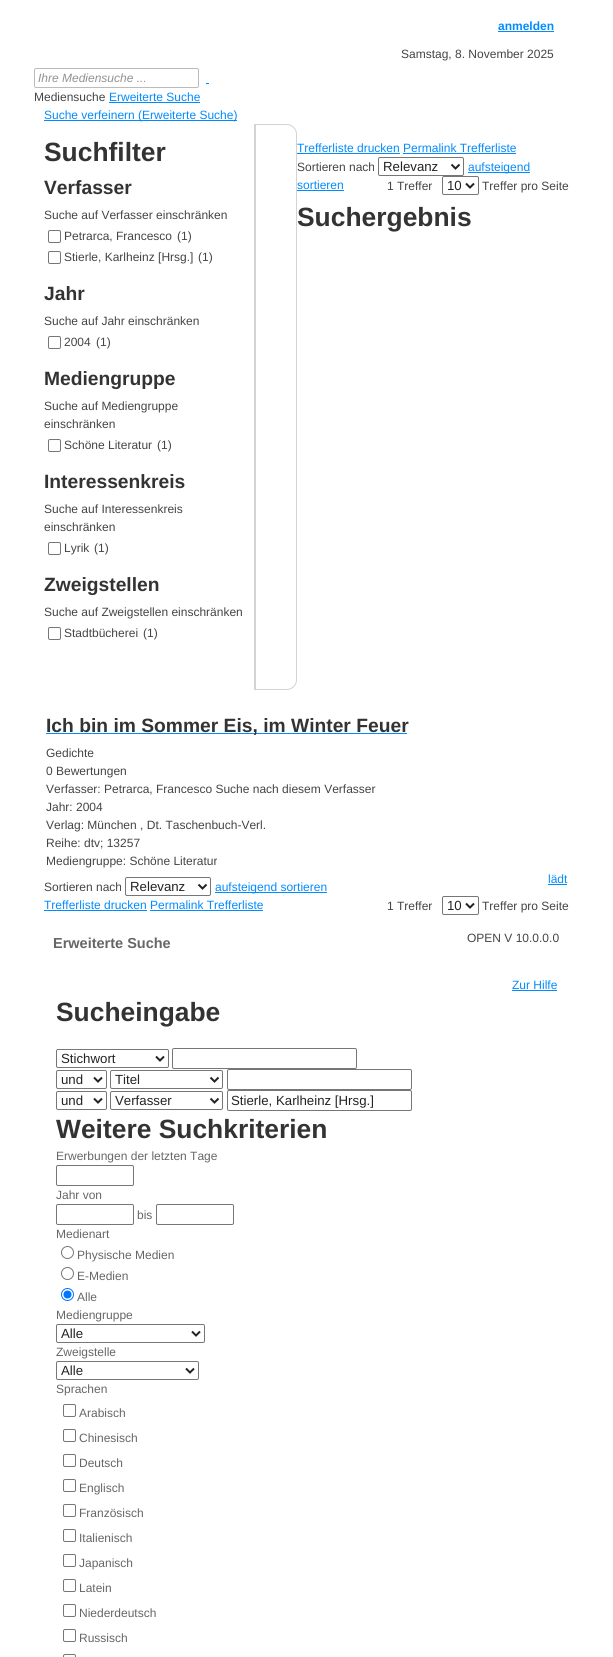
import math
import cairo


def use_color(cr, r, g, b):
  cr.set_source_rgb(r / 255, g / 255, b / 255)

def text(cr, x, y, s, family, size, color, bold=False, italic=False):
  cr.select_font_face(family, cairo.FONT_SLANT_ITALIC if italic else cairo.FONT_SLANT_NORMAL, cairo.FONT_WEIGHT_BOLD if bold else cairo.FONT_WEIGHT_NORMAL)
  cr.set_font_size(size)
  use_color(cr, *color)
  cr.move_to(x, y)
  cr.show_text(s)

def box(cr, x, y, w, h, *color):
  use_color(cr, *color)
  cr.rectangle(x, y, w, h)
  cr.fill()

def round_rect(cr, x, y, w, h, r):
  cr.new_sub_path()
  for i, (u, v) in enumerate([(x + w - r, y + h - r), (x + r, y + h - r), (x + r, y + r), (x + w - r, y + r)]):
    cr.arc(u, v, r, i * math.pi / 2, (i + 1) * math.pi / 2)
  cr.close_path()

def draw(cr):
  use_color(cr, 255, 255, 255)
  cr.paint()
  box(cr, 498, 31, 56, 1, 2, 139, 255)
  round_rect(cr, 34.5, 68.5, 164, 19, 1.5)
  use_color(cr, 187, 187, 187)
  cr.set_line_width(1)
  cr.stroke()
  box(cr, 206, 83, 3, 1, 2, 139, 255)
  box(cr, 109, 102, 91, 1, 2, 139, 255)
  box(cr, 44, 120, 193, 1, 2, 139, 255)
  round_rect(cr, 48.5, 230.5, 12, 12, 1.5)
  use_color(cr, 118, 118, 118)
  cr.stroke()
  round_rect(cr, 48.5, 251.5, 12, 12, 1.5)
  cr.stroke()
  round_rect(cr, 48.5, 336.5, 12, 12, 1.5)
  cr.stroke()
  round_rect(cr, 48.5, 439.5, 12, 12, 1.5)
  cr.stroke()
  round_rect(cr, 48.5, 542.5, 12, 12, 1.5)
  cr.stroke()
  round_rect(cr, 48.5, 627.5, 12, 12, 1.5)
  cr.stroke()
  cr.new_path()
  cr.move_to(254.5, 124.5)
  cr.line_to(287, 124.5)
  cr.curve_to(292, 124.5, 296.5, 129, 296.5, 134)
  cr.line_to(296.5, 680)
  cr.curve_to(296.5, 685, 292, 689.5, 287, 689.5)
  cr.line_to(254.5, 689.5)
  cr.close_path()
  use_color(cr, 211, 211, 211)
  cr.stroke()
  box(cr, 255, 125, 1, 564, 211, 211, 211)
  box(cr, 297, 153, 103, 1, 2, 139, 255)
  box(cr, 403, 153, 113, 1, 2, 139, 255)
  round_rect(cr, 378.5, 157.5, 85, 18, 1.5)
  use_color(cr, 118, 118, 118)
  cr.stroke()
  cr.new_path()
  cr.move_to(451.5, 164.5)
  cr.line_to(455.5, 168.5)
  cr.line_to(459.5, 164.5)
  use_color(cr, 34, 34, 34)
  cr.set_line_width(2)
  cr.stroke()
  box(cr, 468, 172, 62, 1, 2, 139, 255)
  box(cr, 297, 190, 47, 1, 2, 139, 255)
  round_rect(cr, 442.5, 176.5, 36, 18, 1.5)
  use_color(cr, 118, 118, 118)
  cr.set_line_width(1)
  cr.stroke()
  cr.new_path()
  cr.move_to(466, 183.5)
  cr.line_to(470, 187.5)
  cr.line_to(474, 183.5)
  use_color(cr, 34, 34, 34)
  cr.set_line_width(2)
  cr.stroke()
  box(cr, 46, 733, 361, 1, 2, 139, 255)
  box(cr, 548, 884, 19, 1, 2, 139, 255)
  round_rect(cr, 125.5, 877.5, 85, 18, 1.5)
  use_color(cr, 118, 118, 118)
  cr.set_line_width(1)
  cr.stroke()
  cr.new_path()
  cr.move_to(198.5, 884.5)
  cr.line_to(202.5, 888.5)
  cr.line_to(206.5, 884.5)
  use_color(cr, 34, 34, 34)
  cr.set_line_width(2)
  cr.stroke()
  box(cr, 215, 892, 112, 1, 2, 139, 255)
  round_rect(cr, 442.5, 896.5, 36, 18, 1.5)
  use_color(cr, 118, 118, 118)
  cr.set_line_width(1)
  cr.stroke()
  cr.new_path()
  cr.move_to(466, 903.5)
  cr.line_to(470, 907.5)
  cr.line_to(474, 903.5)
  use_color(cr, 34, 34, 34)
  cr.set_line_width(2)
  cr.stroke()
  box(cr, 44, 910, 103, 1, 2, 139, 255)
  box(cr, 150, 910, 113, 1, 2, 139, 255)
  box(cr, 512, 990, 45, 1, 2, 139, 255)
  round_rect(cr, 56.5, 1049.5, 112, 18, 1.5)
  use_color(cr, 118, 118, 118)
  cr.set_line_width(1)
  cr.stroke()
  cr.new_path()
  cr.move_to(156, 1056.5)
  cr.line_to(160, 1060.5)
  cr.line_to(164, 1056.5)
  use_color(cr, 34, 34, 34)
  cr.set_line_width(2)
  cr.stroke()
  round_rect(cr, 172.5, 1048.5, 184, 20, 1.5)
  use_color(cr, 118, 118, 118)
  cr.set_line_width(1)
  cr.stroke()
  round_rect(cr, 56.5, 1070.5, 50, 18, 1.5)
  cr.stroke()
  cr.new_path()
  cr.move_to(94, 1077.5)
  cr.line_to(98, 1081.5)
  cr.line_to(102, 1077.5)
  use_color(cr, 34, 34, 34)
  cr.set_line_width(2)
  cr.stroke()
  round_rect(cr, 110.5, 1070.5, 112, 18, 1.5)
  use_color(cr, 118, 118, 118)
  cr.set_line_width(1)
  cr.stroke()
  cr.new_path()
  cr.move_to(210.5, 1077.5)
  cr.line_to(214.5, 1081.5)
  cr.line_to(218.5, 1077.5)
  use_color(cr, 34, 34, 34)
  cr.set_line_width(2)
  cr.stroke()
  round_rect(cr, 227.5, 1069.5, 184, 20, 1.5)
  use_color(cr, 118, 118, 118)
  cr.set_line_width(1)
  cr.stroke()
  round_rect(cr, 56.5, 1091.5, 50, 18, 1.5)
  cr.stroke()
  cr.new_path()
  cr.move_to(94, 1098.5)
  cr.line_to(98, 1102.5)
  cr.line_to(102, 1098.5)
  use_color(cr, 34, 34, 34)
  cr.set_line_width(2)
  cr.stroke()
  round_rect(cr, 110.5, 1091.5, 112, 18, 1.5)
  use_color(cr, 118, 118, 118)
  cr.set_line_width(1)
  cr.stroke()
  cr.new_path()
  cr.move_to(210.5, 1098.5)
  cr.line_to(214.5, 1102.5)
  cr.line_to(218.5, 1098.5)
  use_color(cr, 34, 34, 34)
  cr.set_line_width(2)
  cr.stroke()
  round_rect(cr, 227.5, 1090.5, 184, 20, 1.5)
  use_color(cr, 118, 118, 118)
  cr.set_line_width(1)
  cr.stroke()
  round_rect(cr, 56.5, 1165.5, 77, 20, 1.5)
  cr.stroke()
  round_rect(cr, 56.5, 1204.5, 77, 20, 1.5)
  cr.stroke()
  round_rect(cr, 156.5, 1204.5, 77, 20, 1.5)
  cr.stroke()
  cr.arc(67.5, 1252.5, 6, 0, 2 * math.pi)
  cr.stroke()
  cr.arc(67.5, 1273.5, 6, 0, 2 * math.pi)
  cr.stroke()
  cr.arc(67.5, 1294.5, 6, 0, 2 * math.pi)
  use_color(cr, 0, 117, 255)
  cr.stroke()
  cr.arc(67.5, 1294.5, 4, 0, 2 * math.pi)
  cr.fill()
  round_rect(cr, 56.5, 1324.5, 148, 18, 1.5)
  use_color(cr, 118, 118, 118)
  cr.stroke()
  cr.new_path()
  cr.move_to(192, 1331.5)
  cr.line_to(196, 1335.5)
  cr.line_to(200, 1331.5)
  use_color(cr, 34, 34, 34)
  cr.set_line_width(2)
  cr.stroke()
  round_rect(cr, 56.5, 1361.5, 142, 18, 1.5)
  use_color(cr, 118, 118, 118)
  cr.set_line_width(1)
  cr.stroke()
  cr.new_path()
  cr.move_to(186, 1368.5)
  cr.line_to(190, 1372.5)
  cr.line_to(194, 1368.5)
  use_color(cr, 34, 34, 34)
  cr.set_line_width(2)
  cr.stroke()
  round_rect(cr, 63.5, 1404.5, 12, 12, 1.5)
  use_color(cr, 118, 118, 118)
  cr.set_line_width(1)
  cr.stroke()
  round_rect(cr, 63.5, 1429.5, 12, 12, 1.5)
  cr.stroke()
  round_rect(cr, 63.5, 1454.5, 12, 12, 1.5)
  cr.stroke()
  round_rect(cr, 63.5, 1479.5, 12, 12, 1.5)
  cr.stroke()
  round_rect(cr, 63.5, 1504.5, 12, 12, 1.5)
  cr.stroke()
  round_rect(cr, 63.5, 1529.5, 12, 12, 1.5)
  cr.stroke()
  round_rect(cr, 63.5, 1554.5, 12, 12, 1.5)
  cr.stroke()
  round_rect(cr, 63.5, 1579.5, 12, 12, 1.5)
  cr.stroke()
  round_rect(cr, 63.5, 1604.5, 12, 12, 1.5)
  cr.stroke()
  round_rect(cr, 63.5, 1629.5, 12, 12, 1.5)
  cr.stroke()
  round_rect(cr, 63.5, 1654.5, 12, 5, 1.5)
  cr.stroke()
  text(cr, 498, 30, "anmelden", "Liberation Sans", 12, (2, 139, 255), bold=True)
  text(cr, 401, 58, "Samstag, 8. November 2025", "Liberation Sans", 12, (68, 68, 68))
  text(cr, 38, 82, "Ihre Mediensuche ...", "Liberation Sans", 12, (145, 145, 145), italic=True)
  text(cr, 34, 101, "Mediensuche", "Liberation Sans", 12, (68, 68, 68))
  text(cr, 109, 101, "Erweiterte Suche", "Liberation Sans", 12, (2, 139, 255))
  text(cr, 44, 119, "Suche verfeinern (Erweiterte Suche)", "Liberation Sans", 12, (2, 139, 255))
  text(cr, 44, 161, "Suchfilter", "Liberation Sans", 26.4, (51, 51, 51), bold=True)
  text(cr, 44, 194, "Verfasser", "Liberation Sans", 19.25, (51, 51, 51), bold=True)
  text(cr, 44, 219, "Suche auf Verfasser einschränken", "Liberation Sans", 12, (68, 68, 68))
  text(cr, 64, 240, "Petrarca, Francesco", "Liberation Sans", 12, (68, 68, 68))
  text(cr, 177, 240, "(1)", "Liberation Sans", 12, (68, 68, 68))
  text(cr, 64, 261, "Stierle, Karlheinz [Hrsg.]", "Liberation Sans", 12, (68, 68, 68))
  text(cr, 198, 261, "(1)", "Liberation Sans", 12, (68, 68, 68))
  text(cr, 44, 300, "Jahr", "Liberation Sans", 19.25, (51, 51, 51), bold=True)
  text(cr, 44, 325, "Suche auf Jahr einschränken", "Liberation Sans", 12, (68, 68, 68))
  text(cr, 64, 346, "2004", "Liberation Sans", 12, (68, 68, 68))
  text(cr, 96, 346, "(1)", "Liberation Sans", 12, (68, 68, 68))
  text(cr, 44, 385, "Mediengruppe", "Liberation Sans", 19.25, (51, 51, 51), bold=True)
  text(cr, 44, 410, "Suche auf Mediengruppe", "Liberation Sans", 12, (68, 68, 68))
  text(cr, 44, 428, "einschränken", "Liberation Sans", 12, (68, 68, 68))
  text(cr, 64, 449, "Schöne Literatur", "Liberation Sans", 12, (68, 68, 68))
  text(cr, 157, 449, "(1)", "Liberation Sans", 12, (68, 68, 68))
  text(cr, 44, 488, "Interessenkreis", "Liberation Sans", 19.25, (51, 51, 51), bold=True)
  text(cr, 44, 513, "Suche auf Interessenkreis", "Liberation Sans", 12, (68, 68, 68))
  text(cr, 44, 531, "einschränken", "Liberation Sans", 12, (68, 68, 68))
  text(cr, 64, 552, "Lyrik", "Liberation Sans", 12, (68, 68, 68))
  text(cr, 94, 552, "(1)", "Liberation Sans", 12, (68, 68, 68))
  text(cr, 44, 591, "Zweigstellen", "Liberation Sans", 19.25, (51, 51, 51), bold=True)
  text(cr, 44, 616, "Suche auf Zweigstellen einschränken", "Liberation Sans", 12, (68, 68, 68))
  text(cr, 64, 637, "Stadtbücherei", "Liberation Sans", 12, (68, 68, 68))
  text(cr, 143, 637, "(1)", "Liberation Sans", 12, (68, 68, 68))
  text(cr, 297, 152, "Trefferliste drucken Permalink Trefferliste", "Liberation Sans", 12, (2, 139, 255))
  text(cr, 297, 171, "Sortieren nach", "Liberation Sans", 12, (68, 68, 68))
  text(cr, 383, 171, "Relevanz", "Liberation Sans", 13.25, (34, 34, 34))
  text(cr, 468, 171, "aufsteigend", "Liberation Sans", 12, (2, 139, 255))
  text(cr, 297, 189, "sortieren", "Liberation Sans", 12, (2, 139, 255))
  text(cr, 387, 190, "1 Treffer", "Liberation Sans", 12, (68, 68, 68))
  text(cr, 447, 190, "10", "Liberation Sans", 13.25, (34, 34, 34))
  text(cr, 482, 190, "Treffer pro Seite", "Liberation Sans", 12, (68, 68, 68))
  text(cr, 297, 226, "Suchergebnis", "Liberation Sans", 26.4, (51, 51, 51), bold=True)
  text(cr, 46, 732, "Ich bin im Sommer Eis, im Winter Feuer", "Liberation Sans", 19.25, (51, 51, 51), bold=True)
  text(cr, 46, 757, "Gedichte", "Liberation Sans", 12, (68, 68, 68))
  text(cr, 46, 775, "0 Bewertungen", "Liberation Sans", 12, (68, 68, 68))
  text(cr, 46, 793, "Verfasser: Petrarca, Francesco Suche nach diesem Verfasser", "Liberation Sans", 12, (68, 68, 68))
  text(cr, 46, 811, "Jahr: 2004", "Liberation Sans", 12, (68, 68, 68))
  text(cr, 46, 829, "Verlag: München , Dt. Taschenbuch-Verl.", "Liberation Sans", 12, (68, 68, 68))
  text(cr, 46, 847, "Reihe: dtv; 13257", "Liberation Sans", 12, (68, 68, 68))
  text(cr, 46, 865, "Mediengruppe: Schöne Literatur", "Liberation Sans", 12, (68, 68, 68))
  text(cr, 548, 883, "lädt", "Liberation Sans", 12, (2, 139, 255))
  text(cr, 44, 891, "Sortieren nach", "Liberation Sans", 12, (68, 68, 68))
  text(cr, 130, 891, "Relevanz", "Liberation Sans", 13.25, (34, 34, 34))
  text(cr, 215, 891, "aufsteigend sortieren", "Liberation Sans", 12, (2, 139, 255))
  text(cr, 387, 910, "1 Treffer", "Liberation Sans", 12, (68, 68, 68))
  text(cr, 447, 910, "10", "Liberation Sans", 13.25, (34, 34, 34))
  text(cr, 482, 910, "Treffer pro Seite", "Liberation Sans", 12, (68, 68, 68))
  text(cr, 44, 909, "Trefferliste drucken Permalink Trefferliste", "Liberation Sans", 12, (2, 139, 255))
  text(cr, 467, 942, "OPEN V 10.0.0.0", "Liberation Sans", 12, (68, 68, 68))
  text(cr, 53, 948, "Erweiterte Suche", "Liberation Sans", 14.5, (102, 102, 102), bold=True)
  text(cr, 512, 989, "Zur Hilfe", "Liberation Sans", 12, (2, 139, 255))
  text(cr, 56, 1021, "Sucheingabe", "Liberation Sans", 26.4, (51, 51, 51), bold=True)
  text(cr, 61, 1063, "Stichwort", "Liberation Sans", 13.25, (34, 34, 34))
  text(cr, 61, 1084, "und", "Liberation Sans", 13.25, (34, 34, 34))
  text(cr, 115, 1084, "Titel", "Liberation Sans", 13.25, (34, 34, 34))
  text(cr, 61, 1105, "und", "Liberation Sans", 13.25, (34, 34, 34))
  text(cr, 115, 1105, "Verfasser", "Liberation Sans", 13.25, (34, 34, 34))
  text(cr, 231, 1105, "Stierle, Karlheinz [Hrsg.]", "Liberation Sans", 13.25, (34, 34, 34))
  text(cr, 56, 1138, "Weitere Suchkriterien", "Liberation Sans", 26.4, (51, 51, 51), bold=True)
  text(cr, 56, 1160, "Erwerbungen der letzten Tage", "Liberation Sans", 12, (102, 102, 102))
  text(cr, 56, 1199, "Jahr von", "Liberation Sans", 12, (102, 102, 102))
  text(cr, 137, 1219, "bis", "Liberation Sans", 12, (102, 102, 102))
  text(cr, 56, 1238, "Medienart", "Liberation Sans", 12, (102, 102, 102))
  text(cr, 77, 1259, "Physische Medien", "Liberation Sans", 12, (102, 102, 102))
  text(cr, 77, 1280, "E-Medien", "Liberation Sans", 12, (102, 102, 102))
  text(cr, 77, 1301, "Alle", "Liberation Sans", 12, (102, 102, 102))
  text(cr, 56, 1319, "Mediengruppe", "Liberation Sans", 12, (102, 102, 102))
  text(cr, 61, 1338, "Alle", "Liberation Sans", 13.25, (34, 34, 34))
  text(cr, 56, 1356, "Zweigstelle", "Liberation Sans", 12, (102, 102, 102))
  text(cr, 61, 1375, "Alle", "Liberation Sans", 13.25, (34, 34, 34))
  text(cr, 56, 1393, "Sprachen", "Liberation Sans", 12, (102, 102, 102))
  text(cr, 79, 1417, "Arabisch", "Liberation Sans", 12, (102, 102, 102))
  text(cr, 79, 1442, "Chinesisch", "Liberation Sans", 12, (102, 102, 102))
  text(cr, 79, 1467, "Deutsch", "Liberation Sans", 12, (102, 102, 102))
  text(cr, 79, 1492, "Englisch", "Liberation Sans", 12, (102, 102, 102))
  text(cr, 79, 1517, "Französisch", "Liberation Sans", 12, (102, 102, 102))
  text(cr, 79, 1542, "Italienisch", "Liberation Sans", 12, (102, 102, 102))
  text(cr, 79, 1567, "Japanisch", "Liberation Sans", 12, (102, 102, 102))
  text(cr, 79, 1592, "Latein", "Liberation Sans", 12, (102, 102, 102))
  text(cr, 79, 1617, "Niederdeutsch", "Liberation Sans", 12, (102, 102, 102))
  text(cr, 79, 1642, "Russisch", "Liberation Sans", 12, (102, 102, 102))


surface = cairo.ImageSurface(cairo.FORMAT_RGB24, 613, 1657)
cr = cairo.Context(surface)
options = cairo.FontOptions()
options.set_hint_metrics(cairo.HINT_METRICS_OFF)
options.set_hint_style(cairo.HINT_STYLE_NONE)
cr.set_font_options(options)
cr.set_miter_limit(4)
draw(cr)
surface.write_to_png("out.png")
